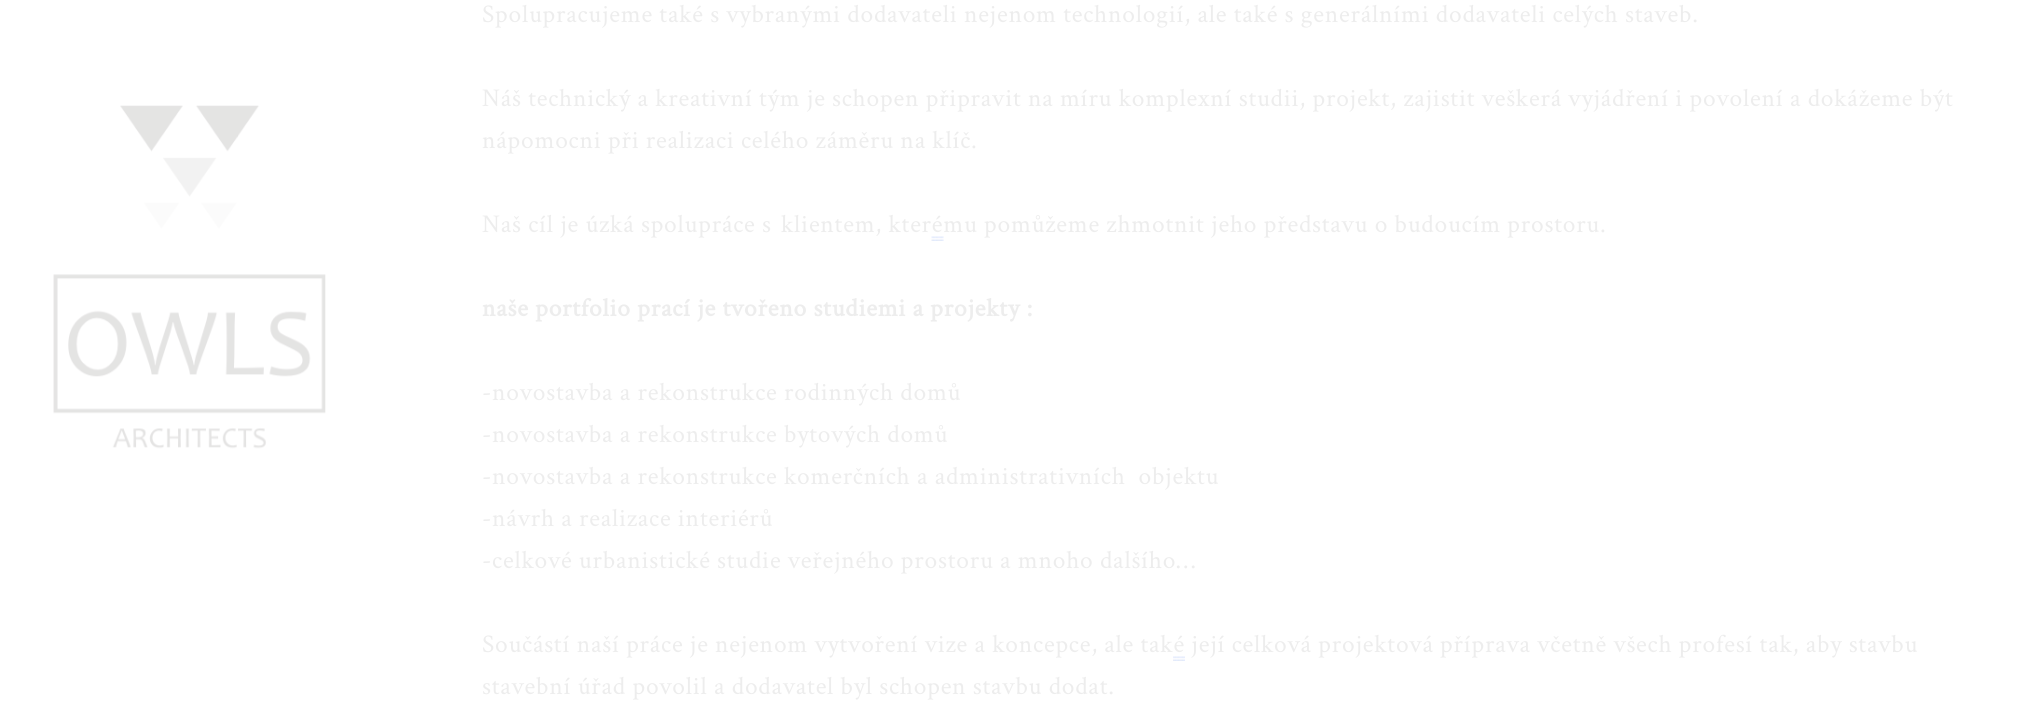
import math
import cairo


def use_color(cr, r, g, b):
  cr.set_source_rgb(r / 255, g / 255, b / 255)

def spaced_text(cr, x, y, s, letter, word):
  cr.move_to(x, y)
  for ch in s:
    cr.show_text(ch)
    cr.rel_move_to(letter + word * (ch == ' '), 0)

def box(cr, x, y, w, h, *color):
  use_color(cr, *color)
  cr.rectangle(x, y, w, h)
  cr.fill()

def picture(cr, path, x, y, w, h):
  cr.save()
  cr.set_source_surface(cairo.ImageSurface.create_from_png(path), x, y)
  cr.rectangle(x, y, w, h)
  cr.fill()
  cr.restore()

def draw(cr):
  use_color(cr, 255, 255, 255)
  cr.paint()
  picture(cr, "img_01.png", 53, 105, 273, 344)
  cr.select_font_face("Crimson Text")
  cr.set_font_size(25.5)
  use_color(cr, 237, 237, 237)
  spaced_text(cr, 482, 22, "Spolupracujeme také s vybranými dodavateli nejenom technologií, ale také s generálními dodavateli celých staveb.", 0.75, 0)
  spaced_text(cr, 482, 106, "Náš technický a kreativní tým je schopen připravit na míru komplexní studii, projekt, zajistit veškerá vyjádření i povolení a dokážeme být", 0.75, 0)
  box(cr, 1944, 95, 1, 1, 255, 255, 255)
  use_color(cr, 237, 237, 237)
  spaced_text(cr, 482, 148, "nápomocni při realizaci celého záměru na klíč.", 0.75, 0)
  spaced_text(cr, 482, 232, "Naš cíl je úzká spolupráce s", 0.75, 0)
  spaced_text(cr, 781, 232, "klientem, kterému pomůžeme zhmotnit jeho představu o budoucím prostoru.", 0.75, 0)
  picture(cr, "img_02.png", 931, 236, 13, 5)
  cr.select_font_face("Crimson Text", cairo.FONT_SLANT_NORMAL, cairo.FONT_WEIGHT_BOLD)
  spaced_text(cr, 482, 316, "naše portfolio prací je tvořeno studiemi a projekty :", 0.75, 0)
  cr.select_font_face("Crimson Text")
  spaced_text(cr, 482, 400, "-novostavba a rekonstrukce rodinných domů", 0.75, 0)
  spaced_text(cr, 482, 442, "-novostavba a rekonstrukce bytov", 0.75, 0)
  box(cr, 843, 431, 1, 1, 255, 255, 255)
  use_color(cr, 237, 237, 237)
  spaced_text(cr, 844, 442, "ých domů", 0.75, 0)
  spaced_text(cr, 482, 484, "-novostavba a rekonstrukce komerčních a administrativních  objektu", 0.75, 0)
  spaced_text(cr, 482, 526, "-návrh a realizace interiérů", 0.75, 0)
  spaced_text(cr, 482, 568, "-celkové urbanistické studie veřejného prostoru a mnoho dalšího…", 0.75, 0)
  spaced_text(cr, 482, 652, "Součástí naší práce je nejenom vytvoření vize a koncepce, ale také její celková projektová příprava včetně všech profesí tak, aby stavbu", 0.75, 0)
  picture(cr, "img_03.png", 1173, 656, 12, 5)
  spaced_text(cr, 482, 694, "stavební úřad povolil a dodavatel byl schopen stavbu dodat.", 0.75, 0)


surface = cairo.ImageSurface(cairo.FORMAT_RGB24, 2032, 707)
cr = cairo.Context(surface)
options = cairo.FontOptions()
options.set_hint_metrics(cairo.HINT_METRICS_OFF)
options.set_hint_style(cairo.HINT_STYLE_NONE)
cr.set_font_options(options)
cr.set_miter_limit(4)
draw(cr)
surface.write_to_png("out.png")
